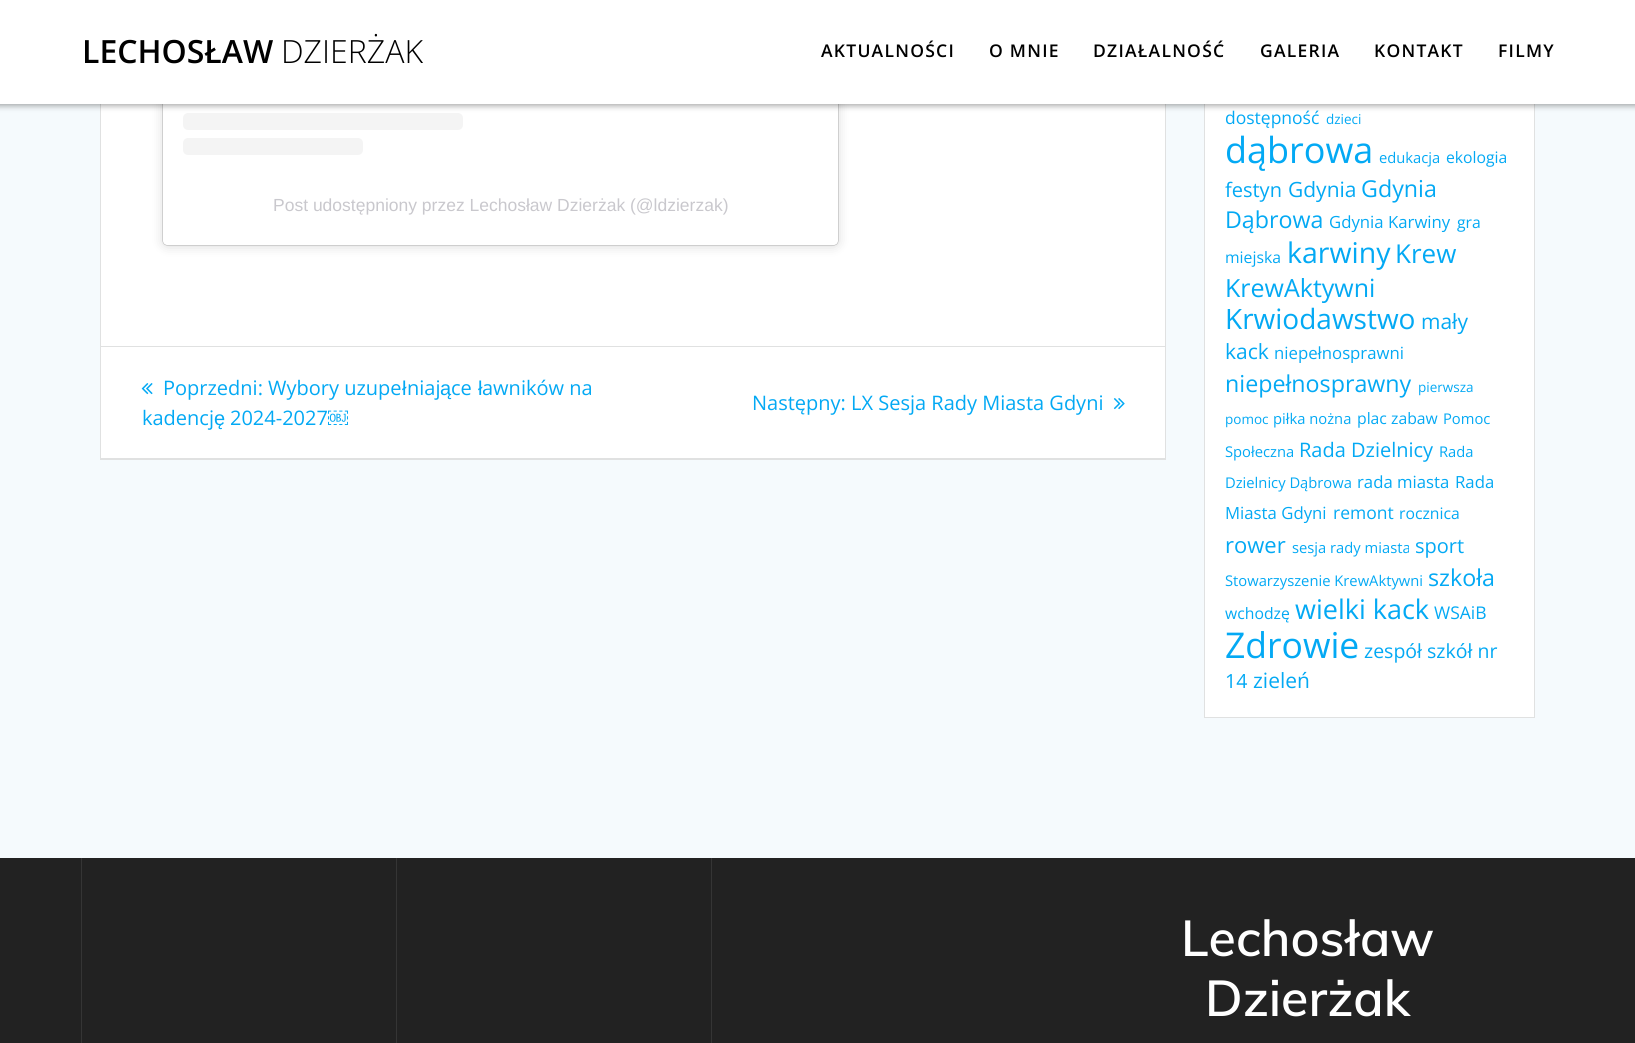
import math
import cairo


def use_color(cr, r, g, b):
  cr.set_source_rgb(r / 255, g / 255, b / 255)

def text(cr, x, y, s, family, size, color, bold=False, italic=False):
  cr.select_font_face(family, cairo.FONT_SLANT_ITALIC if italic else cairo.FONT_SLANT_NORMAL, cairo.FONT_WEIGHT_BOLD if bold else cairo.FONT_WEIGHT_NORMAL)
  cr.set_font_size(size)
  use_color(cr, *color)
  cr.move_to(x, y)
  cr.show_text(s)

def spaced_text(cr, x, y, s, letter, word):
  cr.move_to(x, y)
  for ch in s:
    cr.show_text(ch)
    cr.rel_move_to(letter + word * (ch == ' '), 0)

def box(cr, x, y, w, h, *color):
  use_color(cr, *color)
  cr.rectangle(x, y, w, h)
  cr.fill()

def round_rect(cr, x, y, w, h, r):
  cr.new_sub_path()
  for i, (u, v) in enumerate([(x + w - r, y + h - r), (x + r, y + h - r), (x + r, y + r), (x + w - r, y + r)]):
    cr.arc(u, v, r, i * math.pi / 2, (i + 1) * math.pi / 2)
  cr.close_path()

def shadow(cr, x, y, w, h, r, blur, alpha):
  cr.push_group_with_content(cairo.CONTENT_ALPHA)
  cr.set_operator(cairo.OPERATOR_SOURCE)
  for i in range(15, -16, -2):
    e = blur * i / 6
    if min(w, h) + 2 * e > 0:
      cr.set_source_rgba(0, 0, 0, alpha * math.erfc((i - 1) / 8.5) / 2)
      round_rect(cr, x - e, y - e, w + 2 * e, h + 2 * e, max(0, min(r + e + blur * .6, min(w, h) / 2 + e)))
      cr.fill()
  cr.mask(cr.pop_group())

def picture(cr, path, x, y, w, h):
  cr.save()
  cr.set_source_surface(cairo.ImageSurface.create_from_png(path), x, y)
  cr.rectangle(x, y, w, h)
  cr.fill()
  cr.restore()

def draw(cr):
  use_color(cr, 245, 250, 253)
  cr.paint()
  box(cr, 101, 104, 1064, 354, 255, 255, 255)
  cr.rectangle(100.5, -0.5, 1065, 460)
  use_color(cr, 224, 225, 225)
  cr.set_line_width(1)
  cr.stroke()
  use_color(cr, 0, 0, 0)
  shadow(cr, 163, -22, 675, 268, 4, 6, 0.15)
  shadow(cr, 163, -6, 675, 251, 4, 0.5, 0.5)
  use_color(cr, 255, 255, 255)
  round_rect(cr, 163, -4, 675, 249, 4)
  cr.fill()
  use_color(cr, 244, 244, 244)
  round_rect(cr, 183, 113, 280, 17, 5)
  cr.fill()
  box(cr, 1205, 104, 329, 613, 255, 255, 255)
  cr.rectangle(1204.5, -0.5, 330, 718)
  use_color(cr, 224, 225, 225)
  cr.stroke()
  use_color(cr, 0, 0, 0)
  shadow(cr, -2, -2, 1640, 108, 0, 3, 0.33)
  box(cr, 0, 0, 1635, 104, 255, 255, 255)
  use_color(cr, 244, 244, 244)
  round_rect(cr, 183, 138, 180, 17, 5)
  cr.fill()
  box(cr, 101, 346, 1064, 1, 224, 225, 225)
  box(cr, 101, 458, 1064, 1, 224, 225, 225)
  picture(cr, "img_01.png", 141, 383, 12, 12)
  picture(cr, "img_02.png", 1113, 398, 12, 12)
  box(cr, 0, 858, 1635, 185, 34, 34, 34)
  box(cr, 81, 858, 1, 185, 53, 53, 53)
  box(cr, 396, 858, 1, 185, 53, 53, 53)
  box(cr, 711, 858, 1, 185, 53, 53, 53)
  text(cr, 82, 63, "LECHOSŁAW", "Open Sans SemiBold", 32, (0, 0, 0))
  text(cr, 281, 63, "DZIERŻAK", "Open Sans Light", 32, (0, 0, 0))
  cr.select_font_face("Open Sans SemiBold")
  cr.set_font_size(17.5)
  spaced_text(cr, 821, 57, "AKTUALNOŚCI", 1.25, 0)
  spaced_text(cr, 989, 57, "O MNIE", 1.25, 0)
  spaced_text(cr, 1093, 57, "DZIAŁALNOŚĆ", 1.25, 0)
  spaced_text(cr, 1260, 57, "GALERIA", 1.25, 0)
  spaced_text(cr, 1374, 57, "KONTAKT", 1.25, 0)
  spaced_text(cr, 1498, 57, "FILMY", 1.25, 0)
  text(cr, 273, 211, "Post udostępniony przez Lechosław Dzierżak (@ldzierzak)", "Liberation Sans", 17.5, (201, 200, 205))
  text(cr, 163, 395, "Poprzedni:", "Open Sans", 20, (3, 169, 244))
  text(cr, 268, 395, "Wybory uzupe", "Open Sans", 20, (3, 169, 244))
  text(cr, 402, 395, "ł", "Liberation Sans", 20, (3, 169, 244))
  text(cr, 407, 395, "niaj", "Open Sans", 20, (3, 169, 244))
  text(cr, 440, 395, "ą", "Liberation Sans", 20, (3, 169, 244))
  text(cr, 451, 395, "ce", "Open Sans", 20, (3, 169, 244))
  text(cr, 478, 395, "ł", "Liberation Sans", 20, (3, 169, 244))
  text(cr, 482, 395, "awników na", "Open Sans", 20, (3, 169, 244))
  text(cr, 142, 425, "kadencj", "Open Sans", 20, (3, 169, 244))
  text(cr, 214, 425, "ę", "Liberation Sans", 20, (3, 169, 244))
  text(cr, 230, 425, "2024-2027", "Open Sans", 20, (3, 169, 244))
  text(cr, 328, 425, "￼", "Liberation Sans", 20, (3, 169, 244))
  text(cr, 752, 410, "Następny: LX Sesja Rady Miasta Gdyni", "Open Sans", 20, (3, 169, 244))
  text(cr, 1225, 124, "dostępność", "Open Sans", 17.5, (3, 169, 244))
  text(cr, 1326, 124, "dzieci", "Open Sans", 13.5, (3, 169, 244))
  text(cr, 1225, 163, "dąbrowa", "Open Sans", 36, (3, 169, 244))
  text(cr, 1379, 163, "edukacja", "Open Sans", 14.75, (3, 169, 244))
  text(cr, 1446, 163, "ekologia", "Open Sans", 15.75, (3, 169, 244))
  text(cr, 1225, 197, "festyn", "Open Sans", 20, (3, 169, 244))
  text(cr, 1288, 197, "Gdynia", "Open Sans", 21, (3, 169, 244))
  text(cr, 1361, 197, "Gdynia", "Open Sans", 23.25, (3, 169, 244))
  text(cr, 1225, 228, "Dąbrowa", "Open Sans", 23.25, (3, 169, 244))
  text(cr, 1329, 228, "Gdynia Karwiny", "Open Sans", 16.75, (3, 169, 244))
  text(cr, 1457, 228, "gra", "Open Sans", 15.75, (3, 169, 244))
  text(cr, 1225, 263, "miejska", "Open Sans", 15.75, (3, 169, 244))
  text(cr, 1287, 263, "karwiny", "Open Sans", 28.5, (3, 169, 244))
  text(cr, 1395, 263, "Krew", "Open Sans", 26, (3, 169, 244))
  text(cr, 1225, 297, "KrewAktywni", "Open Sans", 25, (3, 169, 244))
  text(cr, 1225, 329, "Krwiodawstwo", "Open Sans", 28, (3, 169, 244))
  text(cr, 1421, 329, "mały", "Open Sans", 21, (3, 169, 244))
  text(cr, 1225, 359, "kack", "Open Sans", 21, (3, 169, 244))
  text(cr, 1274, 359, "niepełnosprawni", "Open Sans", 16.75, (3, 169, 244))
  text(cr, 1225, 392, "niepełnosprawny", "Open Sans", 23.25, (3, 169, 244))
  text(cr, 1418, 392, "pierwsza", "Open Sans", 13.5, (3, 169, 244))
  text(cr, 1225, 424, "pomoc", "Open Sans", 13.5, (3, 169, 244))
  text(cr, 1273, 424, "piłka nożna", "Open Sans", 14.75, (3, 169, 244))
  text(cr, 1357, 424, "plac zabaw", "Open Sans", 15.75, (3, 169, 244))
  text(cr, 1443, 424, "Pomoc", "Open Sans", 14.75, (3, 169, 244))
  text(cr, 1225, 457, "Społeczna", "Open Sans", 14.75, (3, 169, 244))
  text(cr, 1299, 457, "Rada Dzielnicy", "Open Sans", 20, (3, 169, 244))
  text(cr, 1439, 457, "Rada", "Open Sans", 14.75, (3, 169, 244))
  text(cr, 1225, 488, "Dzielnicy Dąbrowa", "Open Sans", 14.75, (3, 169, 244))
  text(cr, 1357, 488, "rada miasta", "Open Sans", 16.75, (3, 169, 244))
  text(cr, 1455, 488, "Rada", "Open Sans", 16.75, (3, 169, 244))
  text(cr, 1225, 519, "Miasta Gdyni", "Open Sans", 16.75, (3, 169, 244))
  text(cr, 1333, 519, "remont", "Open Sans", 17.5, (3, 169, 244))
  text(cr, 1399, 519, "rocznica", "Open Sans", 15.75, (3, 169, 244))
  text(cr, 1225, 553, "rower", "Open Sans", 22, (3, 169, 244))
  text(cr, 1292, 553, "sesja rady miasta", "Open Sans", 14.75, (3, 169, 244))
  text(cr, 1415, 553, "sport", "Open Sans", 20, (3, 169, 244))
  text(cr, 1225, 586, "Stowarzyszenie KrewAktywni", "Open Sans", 14.75, (3, 169, 244))
  text(cr, 1428, 586, "szkoła", "Open Sans", 23.25, (3, 169, 244))
  text(cr, 1225, 619, "wchodzę", "Open Sans", 15.75, (3, 169, 244))
  text(cr, 1295, 619, "wielki kack", "Open Sans", 27, (3, 169, 244))
  text(cr, 1434, 619, "WSAiB", "Open Sans", 17.5, (3, 169, 244))
  text(cr, 1225, 658, "Zdrowie", "Open Sans", 35.5, (3, 169, 244))
  text(cr, 1364, 658, "zespół szkół nr", "Open Sans", 19.5, (3, 169, 244))
  text(cr, 1225, 688, "14", "Open Sans", 19.5, (3, 169, 244))
  text(cr, 1253, 688, "zieleń", "Open Sans", 21, (3, 169, 244))
  text(cr, 1181, 956, "Lechosław", "Muli SemiBold", 50, (255, 255, 255))
  text(cr, 1205, 1016, "Dzierżak", "Muli SemiBold", 50, (255, 255, 255))


surface = cairo.ImageSurface(cairo.FORMAT_RGB24, 1635, 1043)
cr = cairo.Context(surface)
options = cairo.FontOptions()
options.set_hint_metrics(cairo.HINT_METRICS_OFF)
options.set_hint_style(cairo.HINT_STYLE_NONE)
cr.set_font_options(options)
cr.set_miter_limit(4)
draw(cr)
surface.write_to_png("out.png")
